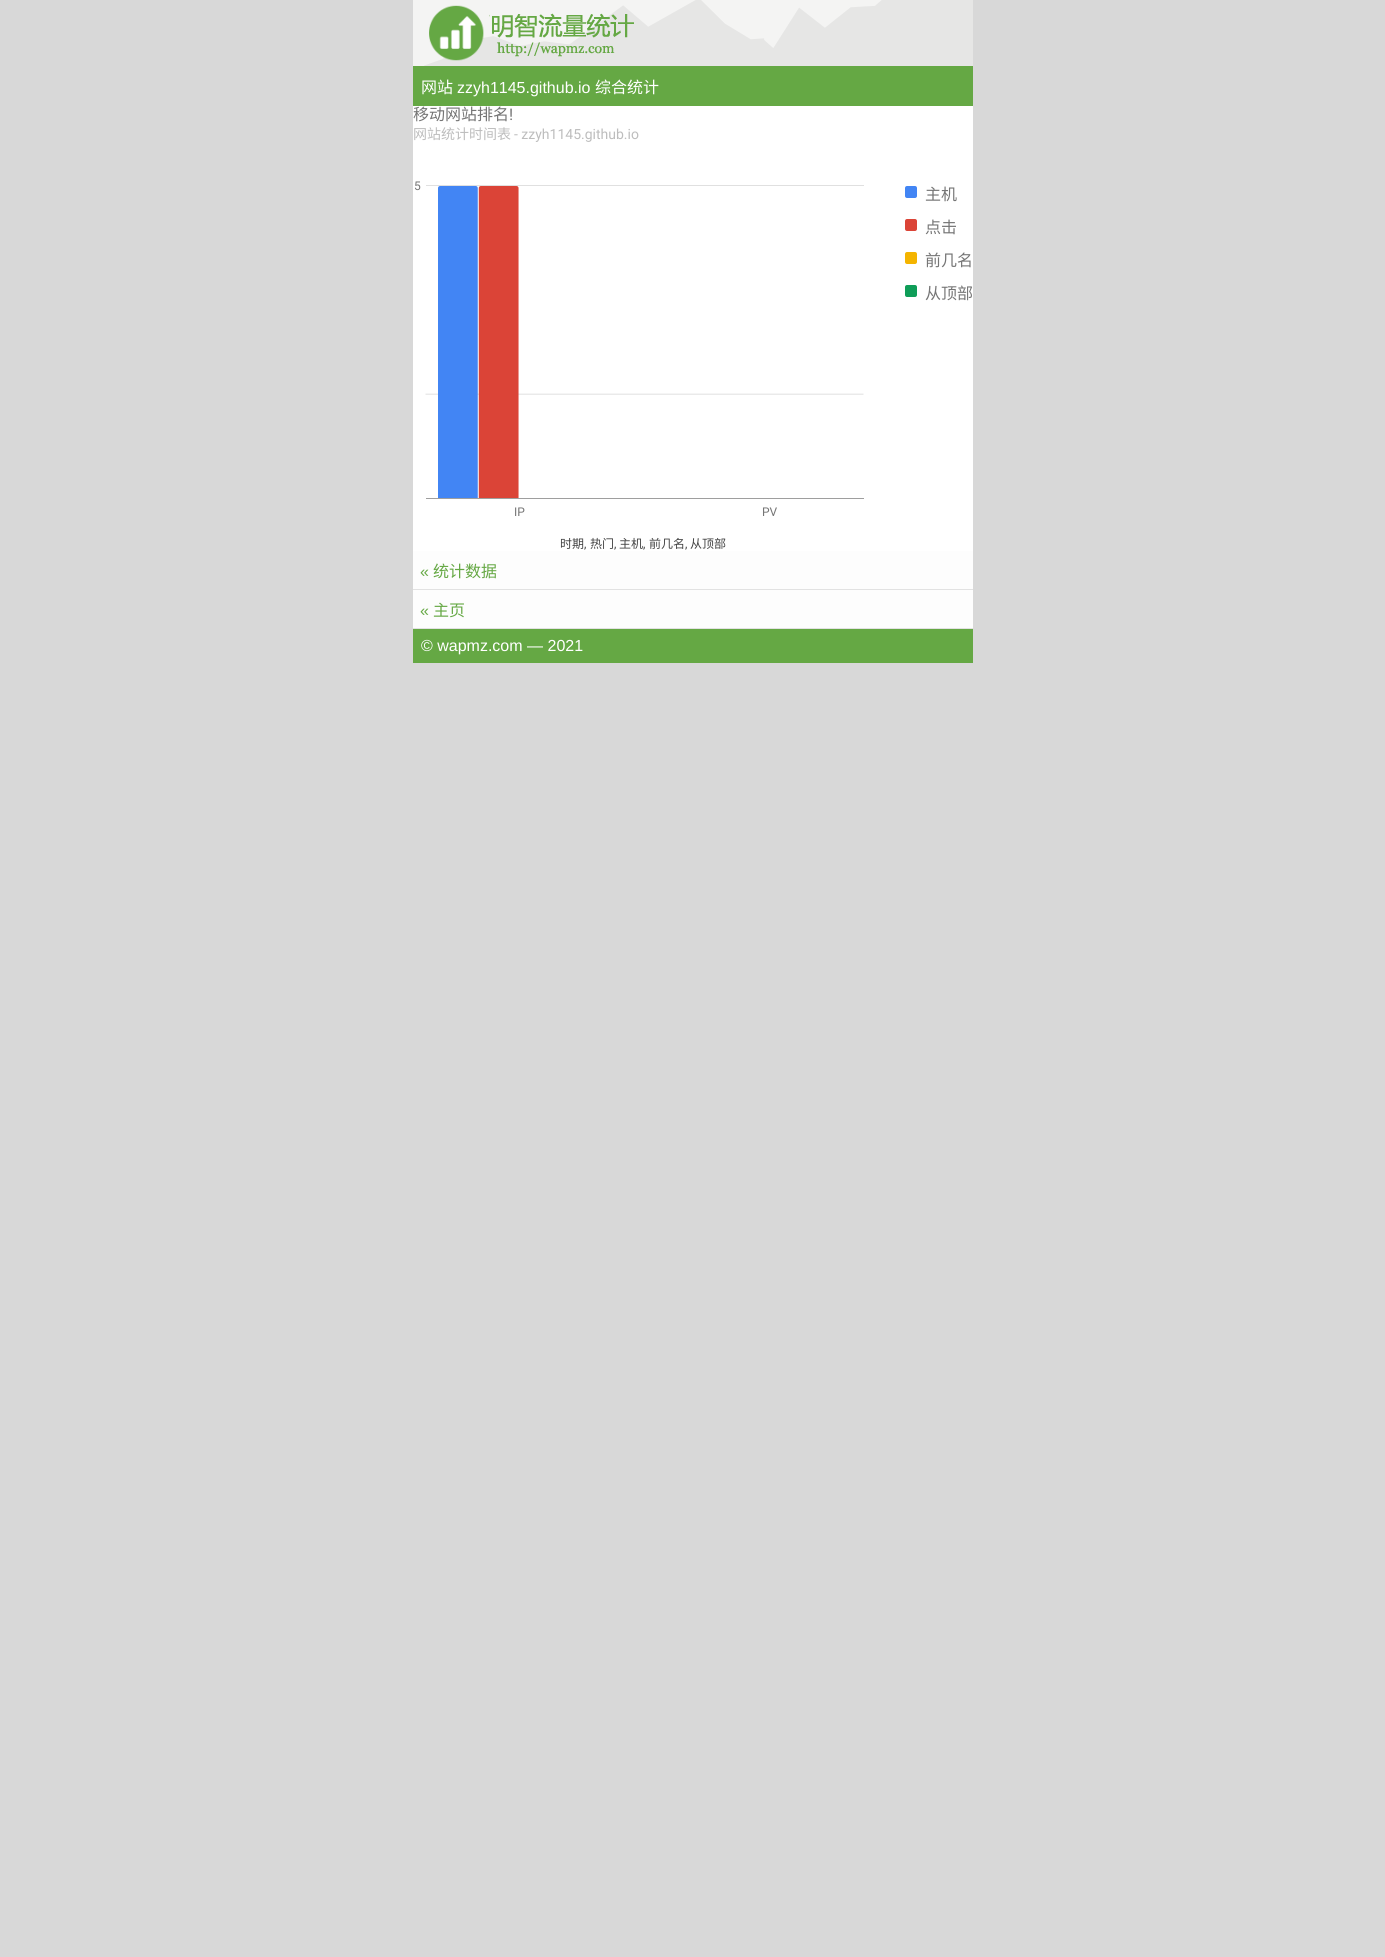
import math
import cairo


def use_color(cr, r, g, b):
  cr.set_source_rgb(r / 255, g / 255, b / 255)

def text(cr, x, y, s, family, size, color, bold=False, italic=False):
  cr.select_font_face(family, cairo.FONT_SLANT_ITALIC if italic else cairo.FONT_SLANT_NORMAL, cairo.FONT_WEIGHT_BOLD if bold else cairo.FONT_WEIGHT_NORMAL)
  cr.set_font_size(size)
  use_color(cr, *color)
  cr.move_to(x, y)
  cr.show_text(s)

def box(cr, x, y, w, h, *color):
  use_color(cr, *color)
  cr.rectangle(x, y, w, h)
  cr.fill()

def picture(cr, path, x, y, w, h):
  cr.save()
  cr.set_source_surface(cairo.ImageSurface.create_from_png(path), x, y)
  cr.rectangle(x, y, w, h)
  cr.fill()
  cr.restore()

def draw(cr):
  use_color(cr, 216, 216, 216)
  cr.paint()
  box(cr, 413, 0, 560, 66, 244, 244, 243)
  picture(cr, "img_01.png", 424, 0, 549, 66)
  picture(cr, "img_02.png", 429, 5, 205, 56)
  box(cr, 413, 66, 560, 40, 101, 168, 68)
  picture(cr, "img_03.png", 413, 106, 560, 445)
  box(cr, 413, 551, 560, 38, 253, 253, 253)
  box(cr, 413, 589, 560, 1, 226, 226, 226)
  box(cr, 413, 590, 560, 38, 253, 253, 253)
  box(cr, 413, 628, 560, 1, 226, 226, 226)
  box(cr, 413, 629, 560, 34, 101, 168, 68)
  text(cr, 421, 93, "网站", "Noto Sans CJK SC", 16, (255, 255, 255))
  text(cr, 457, 93, "zzyh1145.github.io", "Liberation Sans", 16, (255, 255, 255))
  text(cr, 595, 93, "综合统计", "Noto Sans CJK SC", 16, (255, 255, 255))
  text(cr, 413, 120, "移动网站排名", "Noto Sans CJK SC", 16, (117, 117, 117))
  text(cr, 509, 120, "!", "Roboto", 16, (117, 117, 117))
  text(cr, 413, 139, "网站统计时间表", "Noto Sans CJK SC", 14, (189, 189, 189))
  text(cr, 514, 139, "- zzyh1145.github.io", "Roboto", 14, (189, 189, 189))
  text(cr, 414, 190, "5", "Roboto", 12, (117, 117, 117))
  text(cr, 925, 200, "主机", "Noto Sans CJK SC", 16, (117, 117, 117))
  text(cr, 925, 233, "点击", "Noto Sans CJK SC", 16, (117, 117, 117))
  text(cr, 925, 266, "前几名", "Noto Sans CJK SC", 16, (117, 117, 117))
  text(cr, 925, 299, "从顶部", "Noto Sans CJK SC", 16, (117, 117, 117))
  text(cr, 514, 516, "IP", "Roboto", 12, (117, 117, 117))
  text(cr, 762, 516, "PV", "Roboto", 12, (117, 117, 117))
  text(cr, 560, 548, "时期", "Noto Sans CJK SC", 12, (66, 66, 66))
  text(cr, 584, 548, ",", "Roboto", 12, (66, 66, 66))
  text(cr, 590, 548, "热门", "Noto Sans CJK SC", 12, (66, 66, 66))
  text(cr, 614, 548, ",", "Roboto", 12, (66, 66, 66))
  text(cr, 619, 548, "主机", "Noto Sans CJK SC", 12, (66, 66, 66))
  text(cr, 643, 548, ",", "Roboto", 12, (66, 66, 66))
  text(cr, 649, 548, "前几名", "Noto Sans CJK SC", 12, (66, 66, 66))
  text(cr, 685, 548, ",", "Roboto", 12, (66, 66, 66))
  text(cr, 690, 548, "从顶部", "Noto Sans CJK SC", 12, (66, 66, 66))
  text(cr, 420, 577, "«", "Liberation Sans", 16, (101, 168, 68))
  text(cr, 433, 577, "统计数据", "Noto Sans CJK SC", 16, (101, 168, 68))
  text(cr, 420, 616, "«", "Liberation Sans", 16, (101, 168, 68))
  text(cr, 433, 616, "主页", "Noto Sans CJK SC", 16, (101, 168, 68))
  text(cr, 421, 651, "© wapmz.com — 2021", "Liberation Sans", 16, (255, 255, 255))


surface = cairo.ImageSurface(cairo.FORMAT_RGB24, 1385, 1957)
cr = cairo.Context(surface)
options = cairo.FontOptions()
options.set_hint_metrics(cairo.HINT_METRICS_OFF)
options.set_hint_style(cairo.HINT_STYLE_NONE)
cr.set_font_options(options)
cr.set_miter_limit(4)
draw(cr)
surface.write_to_png("out.png")
